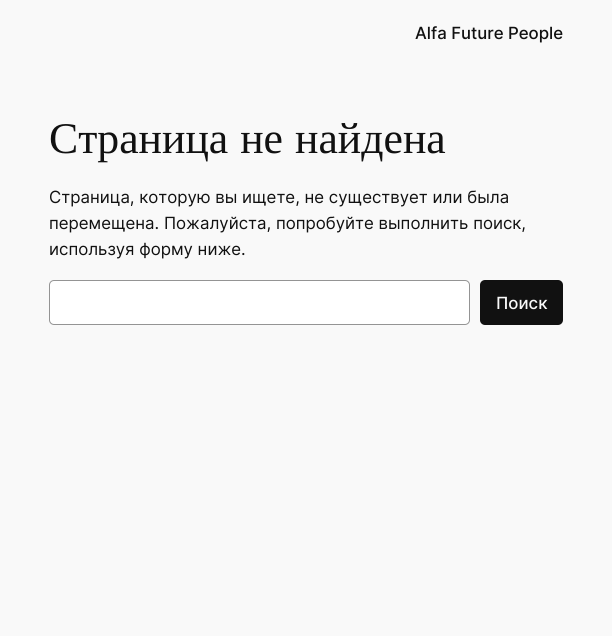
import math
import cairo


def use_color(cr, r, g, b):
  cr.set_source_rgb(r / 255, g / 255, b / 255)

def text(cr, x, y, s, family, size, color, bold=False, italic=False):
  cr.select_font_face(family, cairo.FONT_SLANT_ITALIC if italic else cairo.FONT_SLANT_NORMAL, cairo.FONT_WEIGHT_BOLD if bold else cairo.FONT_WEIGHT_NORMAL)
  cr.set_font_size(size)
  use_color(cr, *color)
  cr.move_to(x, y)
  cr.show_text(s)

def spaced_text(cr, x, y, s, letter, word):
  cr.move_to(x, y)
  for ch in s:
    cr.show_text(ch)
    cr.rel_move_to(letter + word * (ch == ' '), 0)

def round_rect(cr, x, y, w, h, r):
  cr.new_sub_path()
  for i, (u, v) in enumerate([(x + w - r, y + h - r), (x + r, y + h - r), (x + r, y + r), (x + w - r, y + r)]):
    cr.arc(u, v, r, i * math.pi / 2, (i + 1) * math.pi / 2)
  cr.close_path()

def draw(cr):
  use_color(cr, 249, 249, 249)
  cr.paint()
  use_color(cr, 255, 255, 255)
  round_rect(cr, 49.5, 280.5, 420, 44, 4.5)
  cr.fill_preserve()
  use_color(cr, 148, 148, 148)
  cr.set_line_width(1)
  cr.stroke()
  use_color(cr, 17, 17, 17)
  round_rect(cr, 480, 280, 83, 45, 5)
  cr.fill()
  text(cr, 415, 39, "Alfa Future People", "Inter Medium", 16.8, (17, 17, 17))
  cr.select_font_face("Liberation Serif")
  cr.set_font_size(43.75)
  spaced_text(cr, 49, 153, "Страница не найдена", 0, 1)
  text(cr, 49, 203, "Страница, которую вы ищете, не существует или была", "Inter", 16.8, (17, 17, 17))
  text(cr, 49, 229, "перемещена. Пожалуйста, попробуйте выполнить поиск,", "Inter", 16.8, (17, 17, 17))
  text(cr, 49, 255, "используя форму ниже.", "Inter", 16.8, (17, 17, 17))
  text(cr, 496, 309, "Поиск", "Inter Medium", 16.8, (249, 249, 249))


surface = cairo.ImageSurface(cairo.FORMAT_RGB24, 612, 636)
cr = cairo.Context(surface)
options = cairo.FontOptions()
options.set_hint_metrics(cairo.HINT_METRICS_OFF)
options.set_hint_style(cairo.HINT_STYLE_NONE)
cr.set_font_options(options)
cr.set_miter_limit(4)
draw(cr)
surface.write_to_png("out.png")
